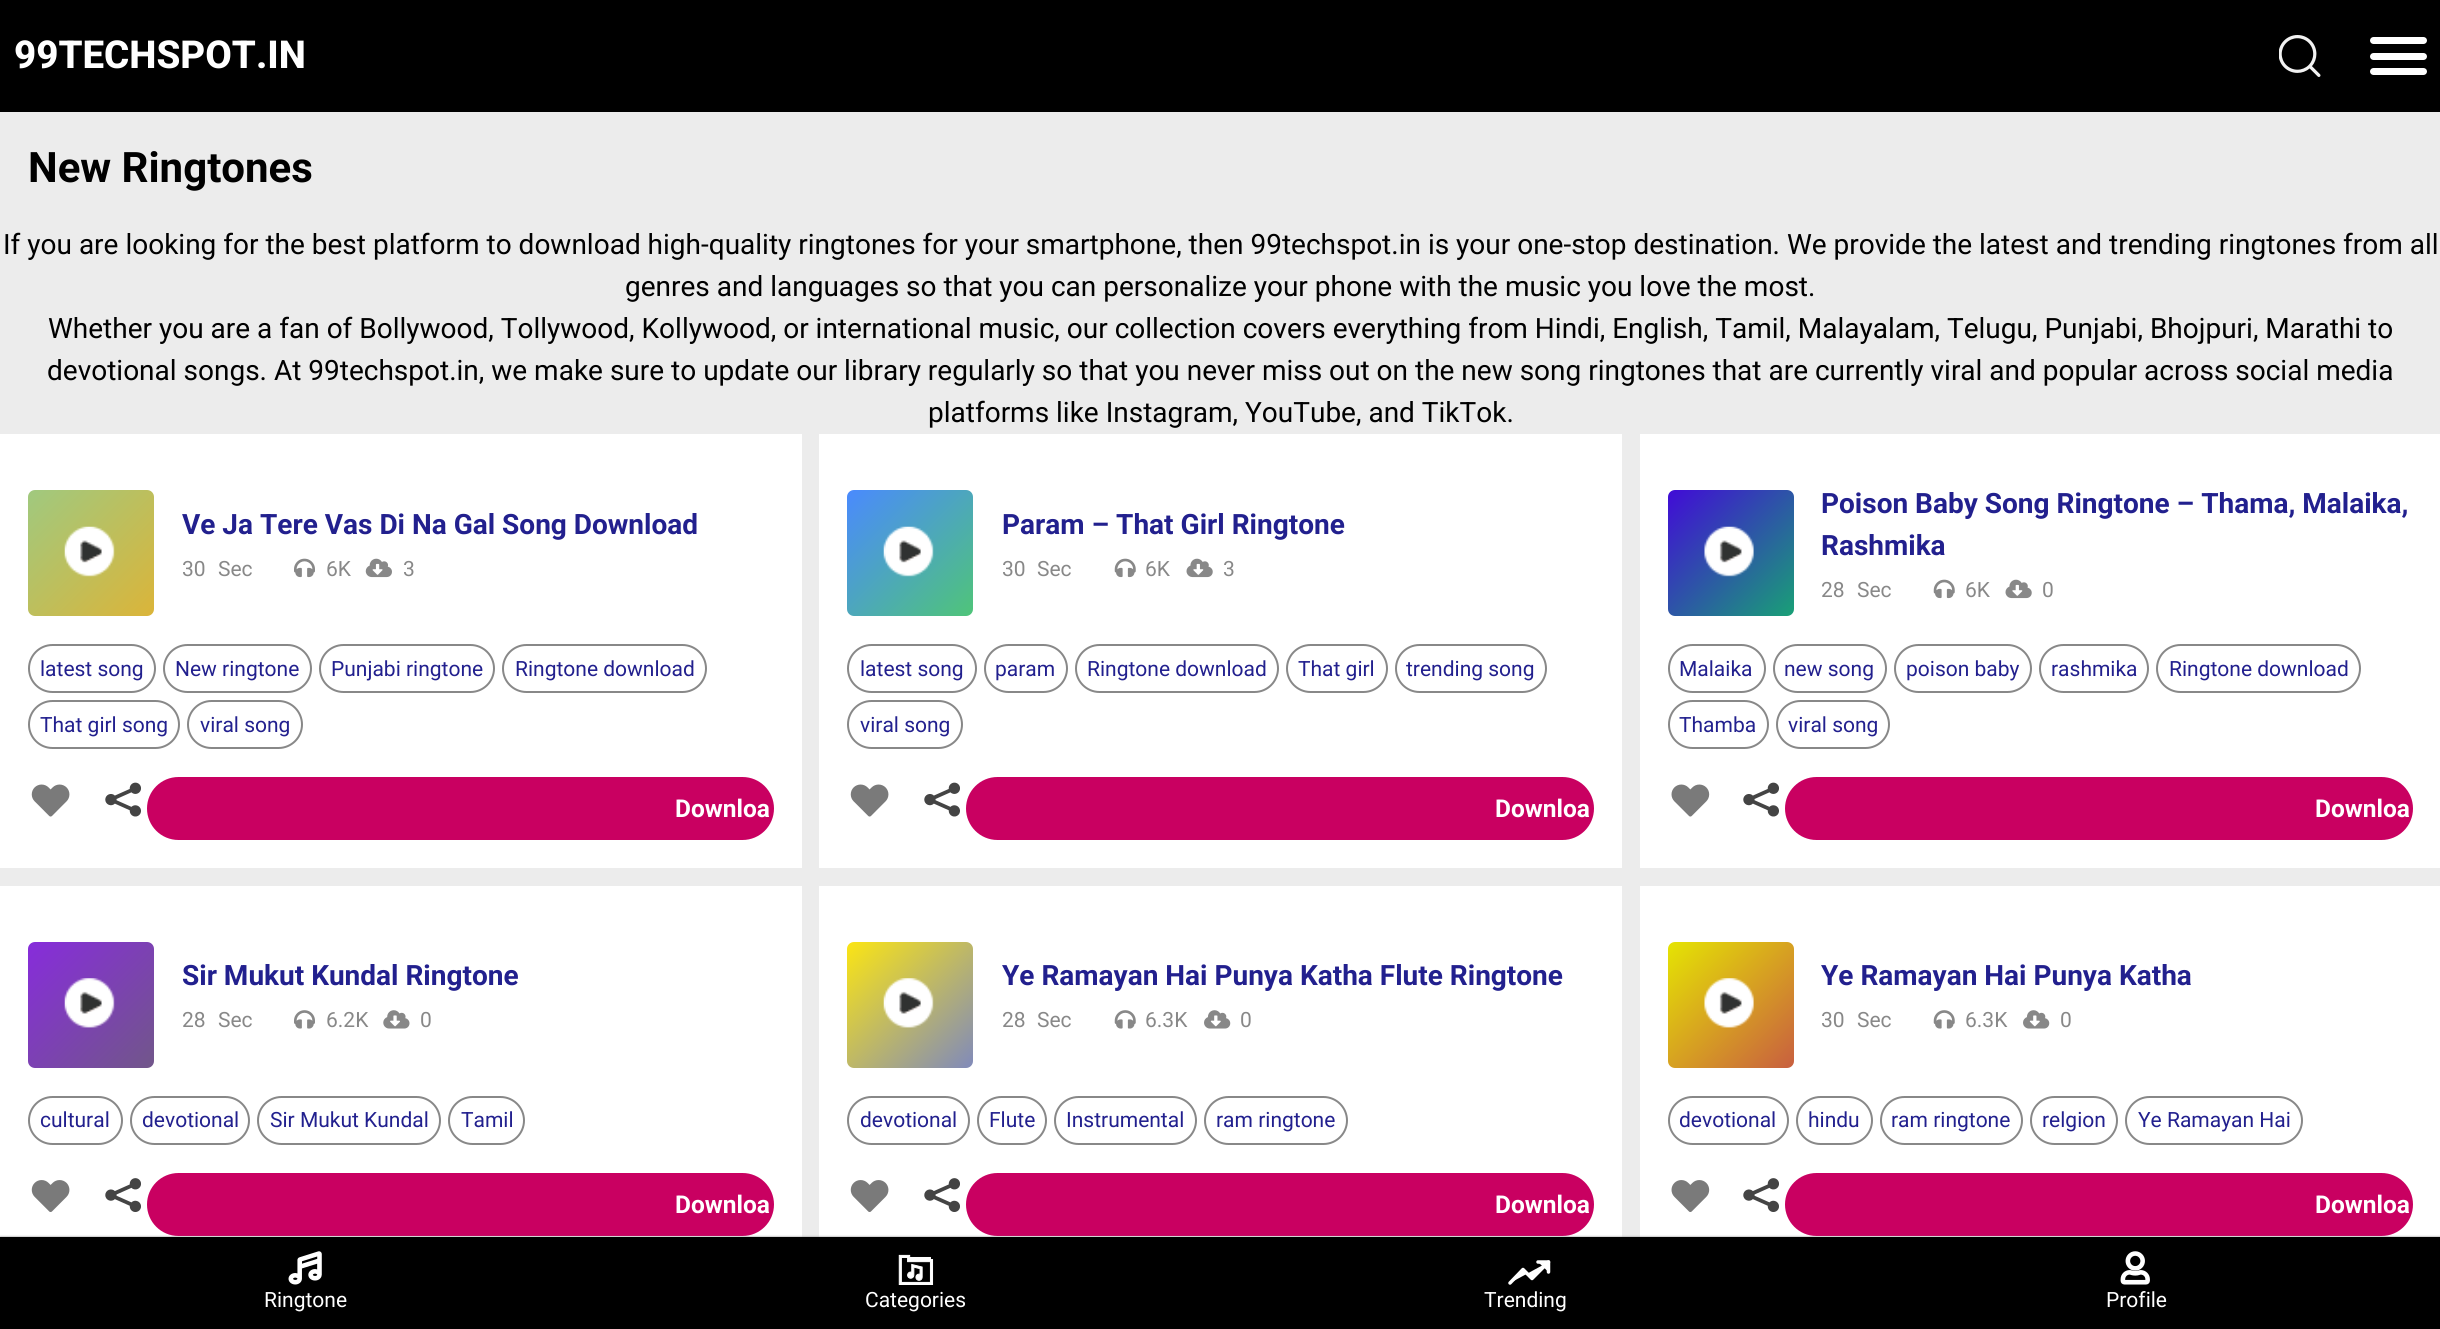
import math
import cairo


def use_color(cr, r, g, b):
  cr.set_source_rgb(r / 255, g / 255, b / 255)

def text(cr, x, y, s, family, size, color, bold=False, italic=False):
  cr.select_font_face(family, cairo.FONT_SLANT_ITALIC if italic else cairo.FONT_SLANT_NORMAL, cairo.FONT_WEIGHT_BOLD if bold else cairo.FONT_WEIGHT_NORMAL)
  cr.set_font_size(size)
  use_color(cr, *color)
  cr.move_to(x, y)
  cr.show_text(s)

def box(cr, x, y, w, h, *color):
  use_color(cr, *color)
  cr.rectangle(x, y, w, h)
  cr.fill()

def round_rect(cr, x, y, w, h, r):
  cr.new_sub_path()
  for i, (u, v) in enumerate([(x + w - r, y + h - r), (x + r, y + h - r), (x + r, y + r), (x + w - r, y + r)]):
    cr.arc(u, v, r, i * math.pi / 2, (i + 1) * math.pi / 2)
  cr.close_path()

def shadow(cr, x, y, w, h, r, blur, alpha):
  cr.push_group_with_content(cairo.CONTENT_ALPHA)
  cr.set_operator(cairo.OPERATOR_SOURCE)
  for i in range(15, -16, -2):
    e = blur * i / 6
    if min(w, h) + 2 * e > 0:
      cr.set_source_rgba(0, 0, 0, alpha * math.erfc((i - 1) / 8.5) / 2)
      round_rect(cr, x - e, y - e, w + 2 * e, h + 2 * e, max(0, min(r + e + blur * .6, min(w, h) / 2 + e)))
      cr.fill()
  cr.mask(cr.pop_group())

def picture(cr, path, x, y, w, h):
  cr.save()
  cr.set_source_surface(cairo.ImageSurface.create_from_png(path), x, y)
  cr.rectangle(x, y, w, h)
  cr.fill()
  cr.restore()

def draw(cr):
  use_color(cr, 236, 236, 236)
  cr.paint()
  box(cr, 0, 0, 2440, 112, 0, 0, 0)
  picture(cr, "img_01.png", 2279, 35, 42, 42)
  use_color(cr, 255, 255, 255)
  round_rect(cr, 2370, 37, 57, 7, 3.5)
  cr.fill()
  round_rect(cr, 2370, 53, 57, 7, 3.5)
  cr.fill()
  round_rect(cr, 2370, 68, 57, 7, 3.5)
  cr.fill()
  box(cr, 0, 434, 802, 434, 255, 255, 255)
  gradient = cairo.LinearGradient(532, 994, 28, 490)
  gradient.add_color_stop_rgba(0, 0.008, 0.58, 0.471, 1)
  gradient.add_color_stop_rgba(0.33, 0.082, 0.839, 0.349, 1)
  gradient.add_color_stop_rgba(0.67, 0.933, 0.682, 0.137, 1)
  gradient.add_color_stop_rgba(1, 0.627, 0.788, 0.498, 1)
  cr.set_source(gradient)
  round_rect(cr, 28, 490, 126, 126, 7)
  cr.fill()
  picture(cr, "img_02.png", 64, 526, 51, 51)
  picture(cr, "img_03.png", 294, 558, 21, 20)
  picture(cr, "img_04.png", 365, 558, 27, 20)
  round_rect(cr, 29, 645, 126, 47, 23.5)
  use_color(cr, 136, 136, 136)
  cr.stroke()
  round_rect(cr, 164, 645, 147, 47, 23.5)
  cr.stroke()
  round_rect(cr, 320, 645, 174, 47, 23.5)
  cr.stroke()
  round_rect(cr, 503, 645, 203, 47, 23.5)
  cr.stroke()
  round_rect(cr, 29, 701, 150, 47, 23.5)
  cr.stroke()
  round_rect(cr, 188, 701, 114, 47, 23.5)
  cr.stroke()
  picture(cr, "img_05.png", 31, 784, 39, 33)
  picture(cr, "img_06.png", 105, 782, 36, 35)
  use_color(cr, 201, 0, 97)
  round_rect(cr, 147, 777, 627, 63, 31.5)
  cr.fill()
  box(cr, 819, 434, 803, 434, 255, 255, 255)
  gradient = cairo.LinearGradient(1351, 994, 847, 490)
  gradient.add_color_stop_rgba(0, 0.776, 0.22, 0.584, 1)
  gradient.add_color_stop_rgba(0.33, 0.149, 0.286, 0.635, 1)
  gradient.add_color_stop_rgba(0.67, 0.318, 0.843, 0.306, 1)
  gradient.add_color_stop_rgba(1, 0.29, 0.541, 0.996, 1)
  cr.set_source(gradient)
  round_rect(cr, 847, 490, 126, 126, 7)
  cr.fill()
  picture(cr, "img_07.png", 883, 526, 51, 51)
  picture(cr, "img_08.png", 1114, 558, 22, 20)
  picture(cr, "img_09.png", 1186, 558, 27, 20)
  round_rect(cr, 848, 645, 128, 47, 23.5)
  use_color(cr, 136, 136, 136)
  cr.stroke()
  round_rect(cr, 985, 645, 82, 47, 23.5)
  cr.stroke()
  round_rect(cr, 1076, 645, 202, 47, 23.5)
  cr.stroke()
  round_rect(cr, 1287, 645, 100, 47, 23.5)
  cr.stroke()
  round_rect(cr, 1396, 645, 150, 47, 23.5)
  cr.stroke()
  round_rect(cr, 848, 701, 114, 47, 23.5)
  cr.stroke()
  picture(cr, "img_05.png", 850, 784, 39, 33)
  picture(cr, "img_06.png", 924, 782, 36, 35)
  use_color(cr, 201, 0, 97)
  round_rect(cr, 966, 777, 628, 63, 31.5)
  cr.fill()
  box(cr, 1640, 434, 800, 434, 255, 255, 255)
  gradient = cairo.LinearGradient(2172, 994, 1668, 490)
  gradient.add_color_stop_rgba(0, 0.945, 0.847, 0.929, 1)
  gradient.add_color_stop_rgba(0.33, 0.576, 0.902, 0.243, 1)
  gradient.add_color_stop_rgba(0.67, 0.047, 0.816, 0.341, 1)
  gradient.add_color_stop_rgba(1, 0.255, 0.043, 0.843, 1)
  cr.set_source(gradient)
  round_rect(cr, 1668, 490, 126, 126, 7)
  cr.fill()
  picture(cr, "img_10.png", 1704, 526, 50, 51)
  picture(cr, "img_08.png", 1933, 579, 22, 20)
  picture(cr, "img_09.png", 2005, 579, 27, 20)
  round_rect(cr, 1669, 645, 96, 47, 23.5)
  use_color(cr, 136, 136, 136)
  cr.stroke()
  round_rect(cr, 1774, 645, 112, 47, 23.5)
  cr.stroke()
  round_rect(cr, 1895, 645, 136, 47, 23.5)
  cr.stroke()
  round_rect(cr, 2040, 645, 108, 47, 23.5)
  cr.stroke()
  round_rect(cr, 2157, 645, 203, 47, 23.5)
  cr.stroke()
  round_rect(cr, 1669, 701, 99, 47, 23.5)
  cr.stroke()
  round_rect(cr, 1777, 701, 112, 47, 23.5)
  cr.stroke()
  picture(cr, "img_11.png", 1671, 784, 39, 33)
  picture(cr, "img_06.png", 1743, 782, 36, 35)
  use_color(cr, 201, 0, 97)
  round_rect(cr, 1785, 777, 628, 63, 31.5)
  cr.fill()
  box(cr, 0, 886, 802, 351, 255, 255, 255)
  gradient = cairo.LinearGradient(532, 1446, 28, 942)
  gradient.add_color_stop_rgba(0, 0.706, 0.278, 0.71, 1)
  gradient.add_color_stop_rgba(0.33, 0.388, 0.235, 0.286, 1)
  gradient.add_color_stop_rgba(0.67, 0.416, 0.392, 0.439, 1)
  gradient.add_color_stop_rgba(1, 0.529, 0.173, 0.859, 1)
  cr.set_source(gradient)
  round_rect(cr, 28, 942, 126, 126, 7)
  cr.fill()
  picture(cr, "img_12.png", 64, 978, 51, 50)
  picture(cr, "img_13.png", 294, 1010, 21, 19)
  picture(cr, "img_14.png", 383, 1010, 27, 19)
  round_rect(cr, 29, 1097, 93, 47, 23.5)
  use_color(cr, 136, 136, 136)
  cr.stroke()
  round_rect(cr, 131, 1097, 118, 47, 23.5)
  cr.stroke()
  round_rect(cr, 258, 1097, 182, 47, 23.5)
  cr.stroke()
  round_rect(cr, 449, 1097, 75, 47, 23.5)
  cr.stroke()
  picture(cr, "img_15.png", 31, 1180, 39, 32)
  picture(cr, "img_16.png", 105, 1178, 36, 34)
  use_color(cr, 201, 0, 97)
  round_rect(cr, 147, 1173, 627, 63, 31.5)
  cr.fill()
  box(cr, 819, 886, 803, 351, 255, 255, 255)
  gradient = cairo.LinearGradient(1351, 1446, 847, 942)
  gradient.add_color_stop_rgba(0, 0.098, 0.094, 0.447, 1)
  gradient.add_color_stop_rgba(0.33, 0.376, 0.741, 0.388, 1)
  gradient.add_color_stop_rgba(0.67, 0.349, 0.427, 0.941, 1)
  gradient.add_color_stop_rgba(1, 0.984, 0.898, 0.078, 1)
  cr.set_source(gradient)
  round_rect(cr, 847, 942, 126, 126, 7)
  cr.fill()
  picture(cr, "img_17.png", 883, 978, 51, 50)
  picture(cr, "img_18.png", 1114, 1010, 22, 19)
  picture(cr, "img_19.png", 1204, 1010, 27, 19)
  round_rect(cr, 848, 1097, 121, 47, 23.5)
  use_color(cr, 136, 136, 136)
  cr.stroke()
  round_rect(cr, 978, 1097, 68, 47, 23.5)
  cr.stroke()
  round_rect(cr, 1055, 1097, 141, 47, 23.5)
  cr.stroke()
  round_rect(cr, 1205, 1097, 142, 47, 23.5)
  cr.stroke()
  picture(cr, "img_15.png", 850, 1180, 39, 32)
  picture(cr, "img_16.png", 924, 1178, 36, 34)
  use_color(cr, 201, 0, 97)
  round_rect(cr, 966, 1173, 628, 63, 31.5)
  cr.fill()
  box(cr, 1640, 886, 800, 351, 255, 255, 255)
  gradient = cairo.LinearGradient(2172, 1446, 1668, 942)
  gradient.add_color_stop_rgba(0, 0.541, 0.42, 0.647, 1)
  gradient.add_color_stop_rgba(0.33, 0.439, 0.988, 0.745, 1)
  gradient.add_color_stop_rgba(0.67, 0.749, 0.204, 0.325, 1)
  gradient.add_color_stop_rgba(1, 0.898, 0.894, 0.012, 1)
  cr.set_source(gradient)
  round_rect(cr, 1668, 942, 126, 126, 7)
  cr.fill()
  picture(cr, "img_20.png", 1704, 978, 50, 50)
  picture(cr, "img_18.png", 1933, 1010, 22, 19)
  picture(cr, "img_19.png", 2023, 1010, 27, 19)
  round_rect(cr, 1669, 1097, 119, 47, 23.5)
  use_color(cr, 136, 136, 136)
  cr.stroke()
  round_rect(cr, 1797, 1097, 75, 47, 23.5)
  cr.stroke()
  round_rect(cr, 1881, 1097, 141, 47, 23.5)
  cr.stroke()
  round_rect(cr, 2031, 1097, 86, 47, 23.5)
  cr.stroke()
  round_rect(cr, 2126, 1097, 176, 47, 23.5)
  cr.stroke()
  picture(cr, "img_21.png", 1671, 1180, 39, 32)
  picture(cr, "img_16.png", 1743, 1178, 36, 34)
  use_color(cr, 201, 0, 97)
  round_rect(cr, 1785, 1173, 628, 63, 31.5)
  cr.fill()
  use_color(cr, 128, 128, 128)
  shadow(cr, 0, 1237, 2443, 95, 0, 1, 1)
  box(cr, 0, 1237, 2440, 92, 0, 0, 0)
  picture(cr, "img_22.png", 288, 1251, 34, 34)
  picture(cr, "img_23.png", 898, 1254, 36, 31)
  use_color(cr, 255, 255, 255)
  cr.new_path()
  cr.move_to(1548.5, 1262)
  cr.line_to(1532, 1278.5)
  cr.line_to(1523, 1269.5)
  cr.line_to(1510, 1283)
  cr.fill_preserve()
  cr.set_line_width(3.5)
  cr.set_line_cap(cairo.LINE_CAP_ROUND)
  cr.set_line_join(cairo.LINE_JOIN_ROUND)
  cr.stroke()
  cr.new_path()
  cr.move_to(1538, 1262)
  cr.line_to(1548.5, 1262)
  cr.line_to(1548.5, 1272)
  cr.fill_preserve()
  cr.stroke()
  picture(cr, "img_24.png", 2120, 1251, 30, 34)
  text(cr, 14, 68, "99TECHSPOT.IN", "Roboto ExtraBold", 38.5, (255, 255, 255))
  text(cr, 28, 182, "New Ringtones", "Roboto", 42, (0, 0, 0), bold=True)
  text(cr, 3, 254, "If you are looking for the best platform to download high-quality ringtones for your smartphone, then 99techspot.in is your one-stop destination. We provide the latest and trending ringtones from all", "Roboto", 28, (0, 0, 0))
  text(cr, 625, 296, "genres and languages so that you can personalize your phone with the music you love the most.", "Roboto", 28, (0, 0, 0))
  text(cr, 48, 338, "Whether you are a fan of Bollywood, Tollywood, Kollywood, or international music, our collection covers everything from Hindi, English, Tamil, Malayalam, Telugu, Punjabi, Bhojpuri, Marathi to", "Roboto", 28, (0, 0, 0))
  text(cr, 47, 380, "devotional songs. At 99techspot.in, we make sure to update our library regularly so that you never miss out on the new song ringtones that are currently viral and popular across social media", "Roboto", 28, (0, 0, 0))
  text(cr, 928, 422, "platforms like Instagram, YouTube, and TikTok.", "Roboto", 28, (0, 0, 0))
  text(cr, 182, 534, "Ve Ja Tere Vas Di Na Gal Song Download", "Roboto", 28, (34, 32, 142), bold=True)
  text(cr, 182, 576, "30", "Roboto", 21, (136, 136, 136))
  text(cr, 218, 576, "Sec", "Roboto", 21, (136, 136, 136))
  text(cr, 326, 576, "6K", "Roboto", 21, (136, 136, 136))
  text(cr, 403, 576, "3", "Roboto", 21, (136, 136, 136))
  text(cr, 40, 676, "latest song", "Roboto", 21, (34, 32, 142))
  text(cr, 175, 676, "New ringtone", "Roboto", 21, (34, 32, 142))
  text(cr, 331, 676, "Punjabi ringtone", "Roboto", 21, (34, 32, 142))
  text(cr, 515, 676, "Ringtone download", "Roboto", 21, (34, 32, 142))
  text(cr, 40, 732, "That girl song", "Roboto", 21, (34, 32, 142))
  text(cr, 200, 732, "viral song", "Roboto", 21, (34, 32, 142))
  text(cr, 675, 817, "Downloa", "Roboto", 24.5, (255, 255, 255), bold=True)
  text(cr, 1002, 534, "Param – That Girl Ringtone", "Roboto", 28, (34, 32, 142), bold=True)
  text(cr, 1002, 576, "30", "Roboto", 21, (136, 136, 136))
  text(cr, 1037, 576, "Sec", "Roboto", 21, (136, 136, 136))
  text(cr, 1145, 576, "6K", "Roboto", 21, (136, 136, 136))
  text(cr, 1223, 576, "3", "Roboto", 21, (136, 136, 136))
  text(cr, 860, 676, "latest song", "Roboto", 21, (34, 32, 142))
  text(cr, 995, 676, "param", "Roboto", 21, (34, 32, 142))
  text(cr, 1087, 676, "Ringtone download", "Roboto", 21, (34, 32, 142))
  text(cr, 1298, 676, "That girl", "Roboto", 21, (34, 32, 142))
  text(cr, 1406, 676, "trending song", "Roboto", 21, (34, 32, 142))
  text(cr, 860, 732, "viral song", "Roboto", 21, (34, 32, 142))
  text(cr, 1495, 817, "Downloa", "Roboto", 24.5, (255, 255, 255), bold=True)
  text(cr, 1821, 513, "Poison Baby Song Ringtone – Thama, Malaika,", "Roboto", 28, (34, 32, 142), bold=True)
  text(cr, 1821, 555, "Rashmika", "Roboto", 28, (34, 32, 142), bold=True)
  text(cr, 1821, 597, "28", "Roboto", 21, (136, 136, 136))
  text(cr, 1857, 597, "Sec", "Roboto", 21, (136, 136, 136))
  text(cr, 1965, 597, "6K", "Roboto", 21, (136, 136, 136))
  text(cr, 2042, 597, "0", "Roboto", 21, (136, 136, 136))
  text(cr, 1679, 676, "Malaika", "Roboto", 21, (34, 32, 142))
  text(cr, 1784, 676, "new song", "Roboto", 21, (34, 32, 142))
  text(cr, 1906, 676, "poison baby", "Roboto", 21, (34, 32, 142))
  text(cr, 2051, 676, "rashmika", "Roboto", 21, (34, 32, 142))
  text(cr, 2169, 676, "Ringtone download", "Roboto", 21, (34, 32, 142))
  text(cr, 1679, 732, "Thamba", "Roboto", 21, (34, 32, 142))
  text(cr, 1788, 732, "viral song", "Roboto", 21, (34, 32, 142))
  text(cr, 2315, 817, "Downloa", "Roboto", 24.5, (255, 255, 255), bold=True)
  text(cr, 182, 985, "Sir Mukut Kundal Ringtone", "Roboto", 28, (34, 32, 142), bold=True)
  text(cr, 182, 1027, "28", "Roboto", 21, (136, 136, 136))
  text(cr, 218, 1027, "Sec", "Roboto", 21, (136, 136, 136))
  text(cr, 326, 1027, "6.2K", "Roboto", 21, (136, 136, 136))
  text(cr, 420, 1027, "0", "Roboto", 21, (136, 136, 136))
  text(cr, 40, 1127, "cultural", "Roboto", 21, (34, 32, 142))
  text(cr, 142, 1127, "devotional", "Roboto", 21, (34, 32, 142))
  text(cr, 270, 1127, "Sir Mukut Kundal", "Roboto", 21, (34, 32, 142))
  text(cr, 461, 1127, "Tamil", "Roboto", 21, (34, 32, 142))
  text(cr, 675, 1213, "Downloa", "Roboto", 24.5, (255, 255, 255), bold=True)
  text(cr, 1002, 985, "Ye Ramayan Hai Punya Katha Flute Ringtone", "Roboto", 28, (34, 32, 142), bold=True)
  text(cr, 1002, 1027, "28", "Roboto", 21, (136, 136, 136))
  text(cr, 1037, 1027, "Sec", "Roboto", 21, (136, 136, 136))
  text(cr, 1145, 1027, "6.3K", "Roboto", 21, (136, 136, 136))
  text(cr, 1240, 1027, "0", "Roboto", 21, (136, 136, 136))
  text(cr, 860, 1127, "devotional", "Roboto", 21, (34, 32, 142))
  text(cr, 989, 1127, "Flute", "Roboto", 21, (34, 32, 142))
  text(cr, 1066, 1127, "Instrumental", "Roboto", 21, (34, 32, 142))
  text(cr, 1216, 1127, "ram ringtone", "Roboto", 21, (34, 32, 142))
  text(cr, 1495, 1213, "Downloa", "Roboto", 24.5, (255, 255, 255), bold=True)
  text(cr, 1821, 985, "Ye Ramayan Hai Punya Katha", "Roboto", 28, (34, 32, 142), bold=True)
  text(cr, 1821, 1027, "30", "Roboto", 21, (136, 136, 136))
  text(cr, 1857, 1027, "Sec", "Roboto", 21, (136, 136, 136))
  text(cr, 1965, 1027, "6.3K", "Roboto", 21, (136, 136, 136))
  text(cr, 2060, 1027, "0", "Roboto", 21, (136, 136, 136))
  text(cr, 1679, 1127, "devotional", "Roboto", 21, (34, 32, 142))
  text(cr, 1808, 1127, "hindu", "Roboto", 21, (34, 32, 142))
  text(cr, 1891, 1127, "ram ringtone", "Roboto", 21, (34, 32, 142))
  text(cr, 2042, 1127, "relgion", "Roboto", 21, (34, 32, 142))
  text(cr, 2138, 1127, "Ye Ramayan Hai", "Roboto", 21, (34, 32, 142))
  text(cr, 2315, 1213, "Downloa", "Roboto", 24.5, (255, 255, 255), bold=True)
  text(cr, 264, 1307, "Ringtone", "Roboto", 21, (255, 255, 255))
  text(cr, 865, 1307, "Categories", "Roboto", 21, (255, 255, 255))
  text(cr, 1484, 1307, "Trending", "Roboto", 21, (255, 255, 255))
  text(cr, 2106, 1307, "Profile", "Roboto", 21, (255, 255, 255))


surface = cairo.ImageSurface(cairo.FORMAT_RGB24, 2440, 1329)
cr = cairo.Context(surface)
options = cairo.FontOptions()
options.set_hint_metrics(cairo.HINT_METRICS_OFF)
options.set_hint_style(cairo.HINT_STYLE_NONE)
cr.set_font_options(options)
cr.set_miter_limit(4)
draw(cr)
surface.write_to_png("out.png")
